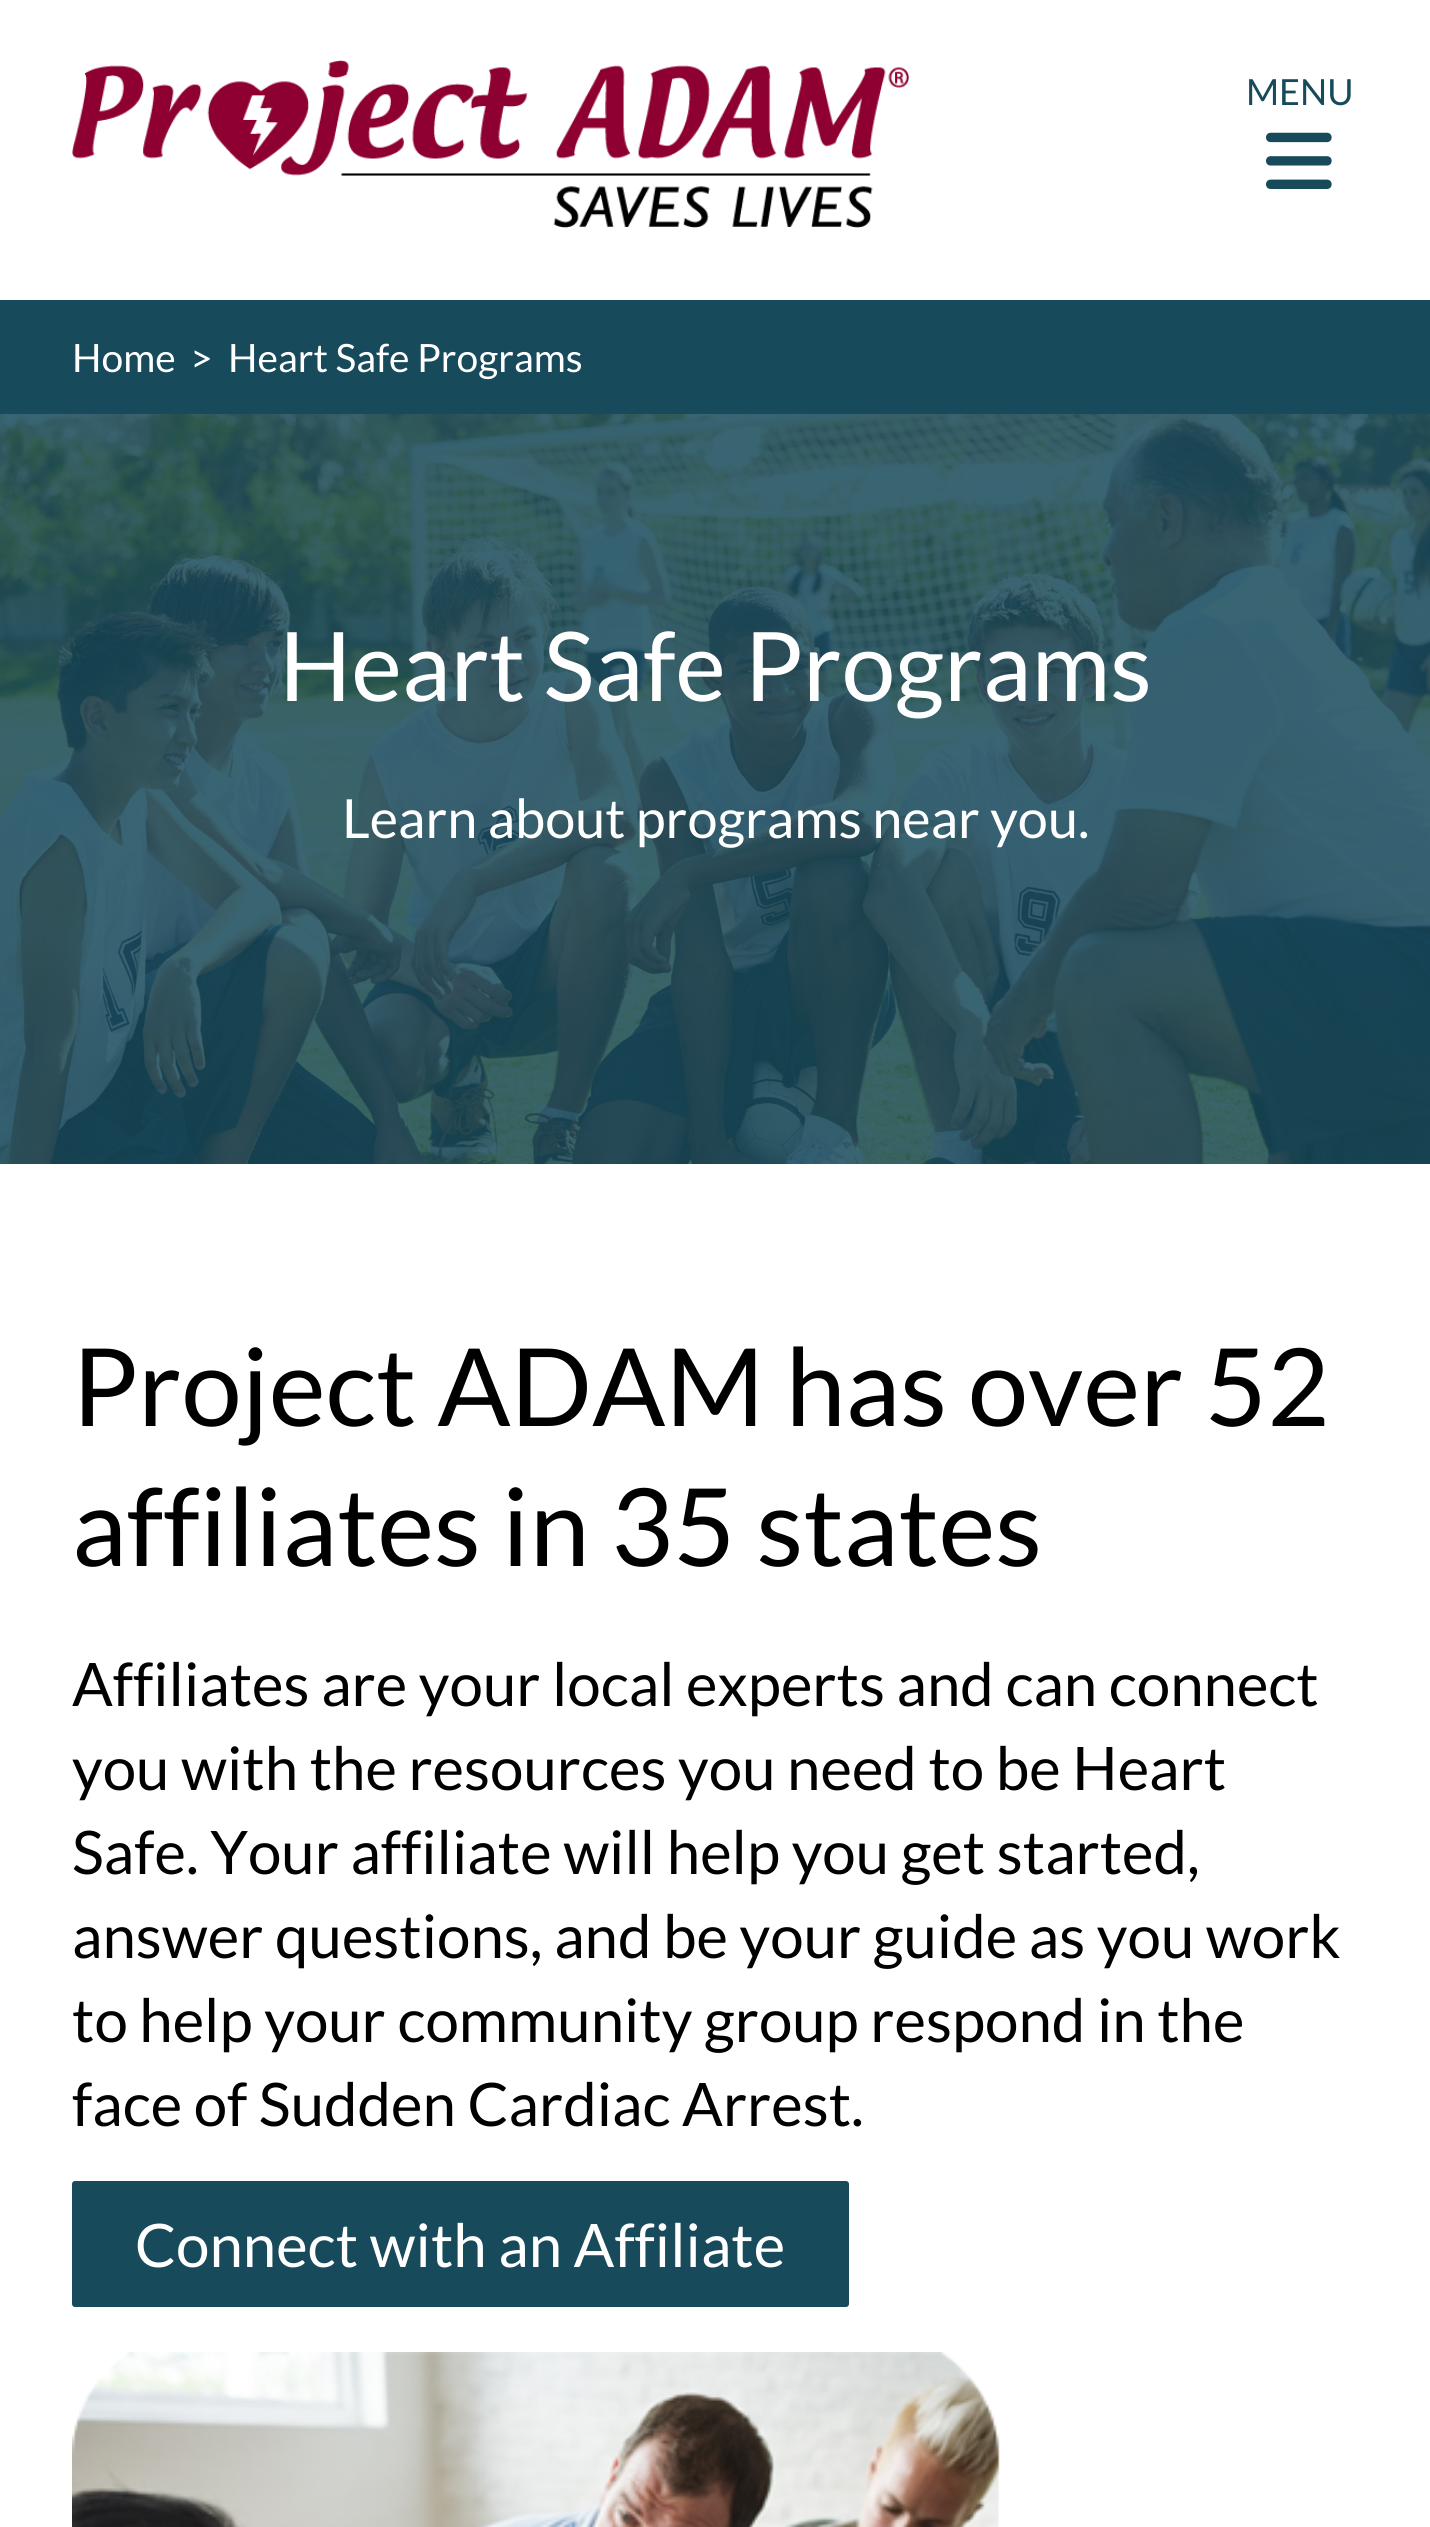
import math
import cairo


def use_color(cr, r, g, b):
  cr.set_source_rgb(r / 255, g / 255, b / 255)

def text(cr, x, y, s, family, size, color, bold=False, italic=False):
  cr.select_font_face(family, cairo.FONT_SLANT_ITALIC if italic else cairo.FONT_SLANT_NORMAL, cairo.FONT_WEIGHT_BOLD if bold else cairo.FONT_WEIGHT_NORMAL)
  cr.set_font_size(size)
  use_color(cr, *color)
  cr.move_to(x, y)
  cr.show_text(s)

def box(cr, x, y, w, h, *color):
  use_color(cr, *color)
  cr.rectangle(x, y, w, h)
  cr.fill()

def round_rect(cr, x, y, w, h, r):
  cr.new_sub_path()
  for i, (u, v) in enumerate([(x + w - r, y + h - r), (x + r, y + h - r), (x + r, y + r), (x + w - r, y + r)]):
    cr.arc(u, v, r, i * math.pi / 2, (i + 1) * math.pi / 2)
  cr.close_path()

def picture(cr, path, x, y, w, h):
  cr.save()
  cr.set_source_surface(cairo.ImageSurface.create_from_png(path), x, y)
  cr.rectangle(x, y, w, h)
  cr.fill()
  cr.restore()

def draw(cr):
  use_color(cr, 255, 255, 255)
  cr.paint()
  picture(cr, "img_01.png", 72, 60, 837, 168)
  picture(cr, "img_02.png", 1266, 132, 66, 57)
  box(cr, 0, 300, 1430, 114, 23, 74, 91)
  picture(cr, "img_03.png", 0, 414, 1430, 750)
  round_rect(cr, 72, 2181, 777, 126, 3)
  cr.fill()
  picture(cr, "img_04.png", 72, 2352, 928, 175)
  text(cr, 1246, 105, "MENU", "Lato", 36, (23, 74, 91))
  text(cr, 72, 372, "Home", "Lato", 39, (255, 255, 255))
  text(cr, 190, 372, ">", "Lato", 39, (255, 255, 255))
  text(cr, 228, 372, "Heart Safe Programs", "Lato", 39, (255, 255, 255))
  text(cr, 279, 701, "Heart Safe Programs", "Lato", 96, (255, 255, 255))
  text(cr, 342, 838, "Learn about programs near you.", "Lato", 54, (255, 255, 255))
  text(cr, 72, 1426, "Project ADAM has over 52", "Lato", 108, (0, 0, 0))
  text(cr, 72, 1566, "affiliates in 35 states", "Lato", 108, (0, 0, 0))
  text(cr, 72, 1706, "Affiliates are your local experts and can connect", "Lato", 60, (0, 0, 0))
  text(cr, 72, 1790, "you with the resources you need to be Heart", "Lato", 60, (0, 0, 0))
  text(cr, 72, 1874, "Safe. Your affiliate will help you get started,", "Lato", 60, (0, 0, 0))
  text(cr, 72, 1958, "answer questions, and be your guide as you work", "Lato", 60, (0, 0, 0))
  text(cr, 72, 2042, "to help your community group respond in the", "Lato", 60, (0, 0, 0))
  text(cr, 72, 2126, "face of Sudden Cardiac Arrest.", "Lato", 60, (0, 0, 0))
  text(cr, 135, 2267, "Connect with an Affiliate", "Lato", 60, (255, 255, 255))


surface = cairo.ImageSurface(cairo.FORMAT_RGB24, 1430, 2527)
cr = cairo.Context(surface)
options = cairo.FontOptions()
options.set_hint_metrics(cairo.HINT_METRICS_OFF)
options.set_hint_style(cairo.HINT_STYLE_NONE)
cr.set_font_options(options)
cr.set_miter_limit(4)
draw(cr)
surface.write_to_png("out.png")
